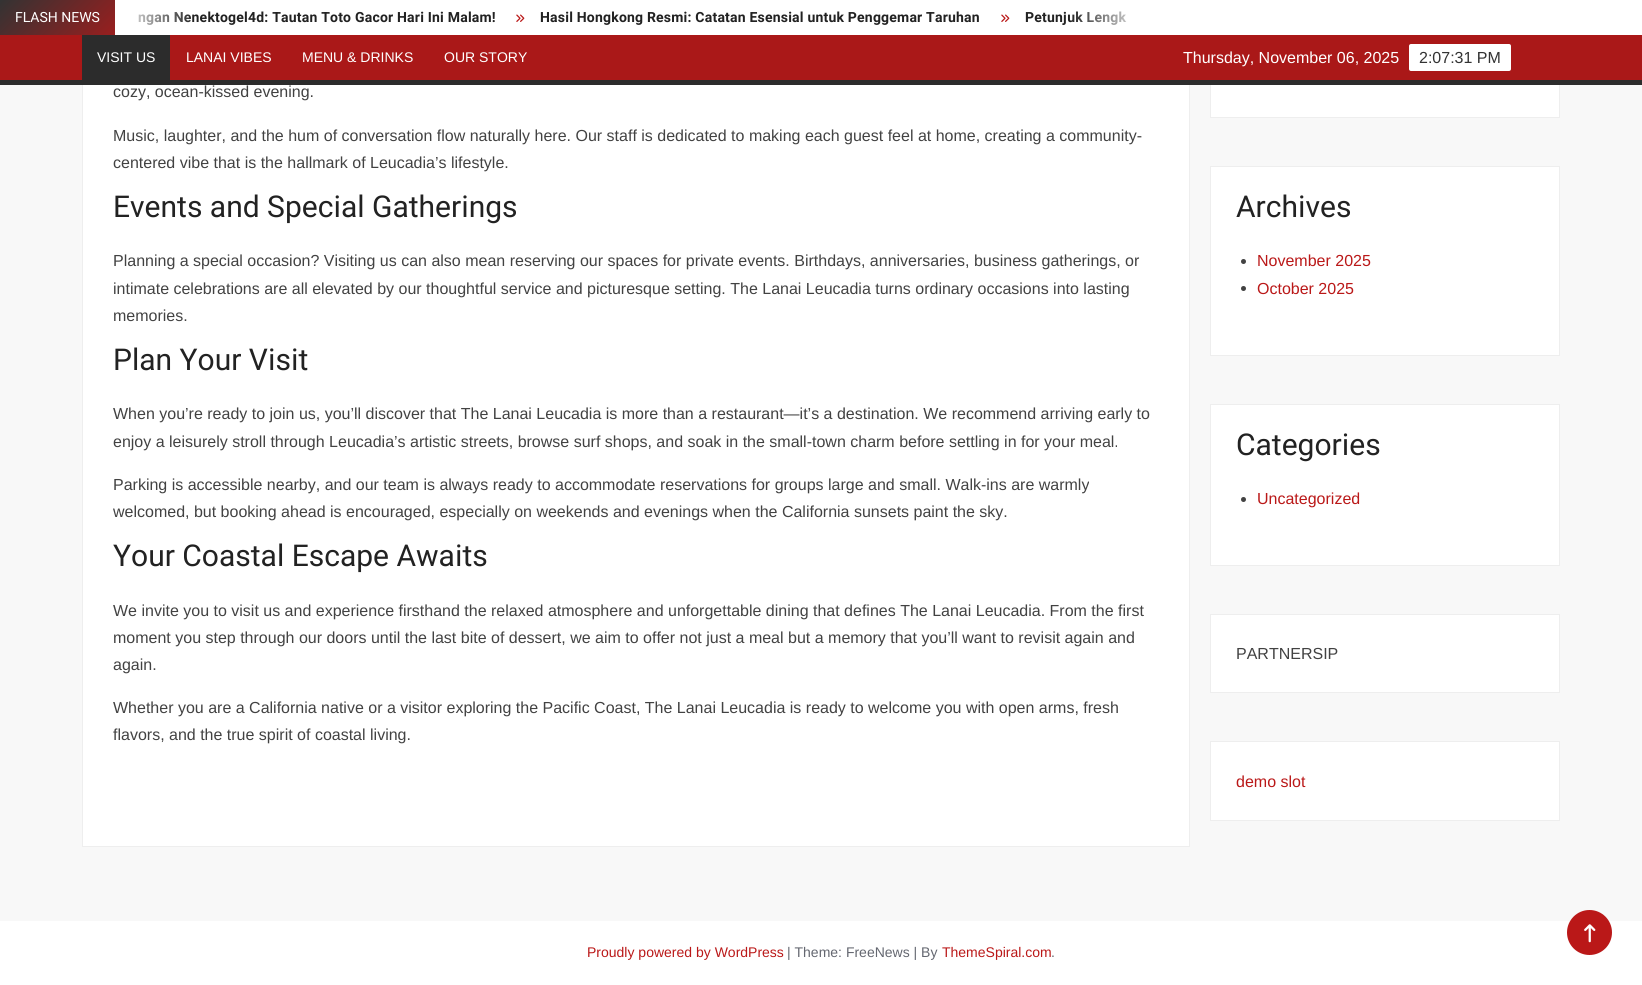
import math
import cairo


def use_color(cr, r, g, b):
  cr.set_source_rgb(r / 255, g / 255, b / 255)

def text(cr, x, y, s, family, size, color, bold=False, italic=False):
  cr.select_font_face(family, cairo.FONT_SLANT_ITALIC if italic else cairo.FONT_SLANT_NORMAL, cairo.FONT_WEIGHT_BOLD if bold else cairo.FONT_WEIGHT_NORMAL)
  cr.set_font_size(size)
  use_color(cr, *color)
  cr.move_to(x, y)
  cr.show_text(s)

def spaced_text(cr, x, y, s, letter, word):
  cr.move_to(x, y)
  for ch in s:
    cr.show_text(ch)
    cr.rel_move_to(letter + word * (ch == ' '), 0)

def box(cr, x, y, w, h, *color):
  use_color(cr, *color)
  cr.rectangle(x, y, w, h)
  cr.fill()

def round_rect(cr, x, y, w, h, r):
  cr.new_sub_path()
  for i, (u, v) in enumerate([(x + w - r, y + h - r), (x + r, y + h - r), (x + r, y + r), (x + w - r, y + r)]):
    cr.arc(u, v, r, i * math.pi / 2, (i + 1) * math.pi / 2)
  cr.close_path()

def picture(cr, path, x, y, w, h):
  cr.save()
  cr.set_source_surface(cairo.ImageSurface.create_from_png(path), x, y)
  cr.rectangle(x, y, w, h)
  cr.fill()
  cr.restore()

def draw(cr):
  use_color(cr, 248, 248, 248)
  cr.paint()
  box(cr, 83, 85, 1106, 761, 255, 255, 255)
  cr.rectangle(82.5, -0.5, 1107, 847)
  use_color(cr, 238, 238, 238)
  cr.set_line_width(1)
  cr.stroke()
  box(cr, 1211, 85, 348, 32, 255, 255, 255)
  cr.rectangle(1210.5, -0.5, 349, 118)
  use_color(cr, 238, 238, 238)
  cr.stroke()
  box(cr, 115, 0, 1527, 35, 255, 255, 255)
  gradient = cairo.LinearGradient(380, 220, 80, -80)
  gradient.add_color_stop_rgba(0, 0.729, 0.094, 0.094, 1)
  gradient.add_color_stop_rgba(0.33, 0.933, 0.933, 0.933, 1)
  gradient.add_color_stop_rgba(0.67, 0.729, 0.094, 0.094, 1)
  gradient.add_color_stop_rgba(1, 0.2, 0.2, 0.2, 1)
  cr.set_source(gradient)
  cr.rectangle(0, 0, 115, 35)
  cr.fill()
  picture(cr, "img_01.png", 516, 14, 9, 8)
  picture(cr, "img_01.png", 1001, 14, 9, 8)
  box(cr, 0, 35, 1642, 45, 170, 24, 24)
  box(cr, 0, 80, 1642, 5, 44, 44, 44)
  box(cr, 82, 35, 88, 45, 44, 44, 44)
  use_color(cr, 255, 255, 255)
  round_rect(cr, 1409, 44, 102, 27, 2)
  cr.fill()
  cr.rectangle(1210.5, 166.5, 349, 189)
  cr.fill_preserve()
  use_color(cr, 238, 238, 238)
  cr.stroke()
  use_color(cr, 66, 66, 66)
  cr.arc(1243.5, 261.5, 2.5, 0, 2 * math.pi)
  cr.fill()
  cr.arc(1243.5, 288.5, 2.5, 0, 2 * math.pi)
  cr.fill()
  use_color(cr, 255, 255, 255)
  cr.rectangle(1210.5, 404.5, 349, 161)
  cr.fill_preserve()
  use_color(cr, 238, 238, 238)
  cr.stroke()
  use_color(cr, 66, 66, 66)
  cr.arc(1243.5, 499.5, 2.5, 0, 2 * math.pi)
  cr.fill()
  use_color(cr, 255, 255, 255)
  cr.rectangle(1210.5, 614.5, 349, 78)
  cr.fill_preserve()
  use_color(cr, 238, 238, 238)
  cr.stroke()
  use_color(cr, 255, 255, 255)
  cr.rectangle(1210.5, 741.5, 349, 79)
  cr.fill_preserve()
  use_color(cr, 238, 238, 238)
  cr.stroke()
  box(cr, 0, 921, 1642, 64, 255, 255, 255)
  use_color(cr, 186, 24, 24)
  cr.arc(1589.5, 932.5, 22.5, 0, 2 * math.pi)
  cr.fill()
  picture(cr, "img_02.png", 1584, 924, 12, 19)
  text(cr, 15, 22, "FLASH NEWS", "Heebo", 14, (255, 255, 255))
  cr.select_font_face("Heebo", cairo.FONT_SLANT_NORMAL, cairo.FONT_WEIGHT_BOLD)
  use_color(cr, 34, 34, 34)
  spaced_text(cr, 138, 22, "ngan Nenektogel4d: Tautan Toto Gacor Hari Ini Malam!", 0.2, 0)
  gradient = cairo.LinearGradient(115, 18, 195, 17)
  gradient.add_color_stop_rgba(0, 1, 1, 1, 1)
  gradient.add_color_stop_rgba(1, 1, 1, 1, 0)
  cr.set_source(gradient)
  cr.rectangle(138, 12, 55, 13)
  cr.fill()
  use_color(cr, 34, 34, 34)
  spaced_text(cr, 540, 22, "Hasil Hongkong Resmi: Catatan Esensial untuk Penggemar Taruhan", 0.2, 0)
  spaced_text(cr, 1025, 22, "Petunjuk Lengk", 0.2, 0)
  gradient = cairo.LinearGradient(1069, 18, 1149, 17)
  gradient.add_color_stop_rgba(0, 1, 1, 1, 0)
  gradient.add_color_stop_rgba(1, 1, 1, 1, 1)
  cr.set_source(gradient)
  cr.rectangle(1071, 11, 55, 14)
  cr.fill()
  text(cr, 97, 62, "VISIT US", "Arimo", 14, (255, 255, 255))
  text(cr, 186, 62, "LANAI VIBES", "Arimo", 14, (255, 255, 255))
  text(cr, 302, 62, "MENU & DRINKS", "Arimo", 14, (255, 255, 255))
  text(cr, 444, 62, "OUR STORY", "Arimo", 14, (255, 255, 255))
  text(cr, 1183, 63, "Thursday, November 06, 2025", "Arimo", 16, (255, 255, 255))
  text(cr, 1419, 63, "2:07:31 PM", "Arimo", 16, (51, 51, 51))
  text(cr, 113, 97, "cozy, ocean-kissed evening.", "Arimo", 16, (66, 66, 66))
  text(cr, 113, 141, "Music, laughter, and the hum of conversation flow naturally here. Our staff is dedicated to making each guest feel at home, creating a community-", "Arimo", 16, (66, 66, 66))
  text(cr, 113, 168, "centered vibe that is the hallmark of Leucadia’s lifestyle.", "Arimo", 16, (66, 66, 66))
  text(cr, 113, 217, "Events and Special Gatherings", "Heebo", 30, (34, 34, 34))
  text(cr, 113, 266, "Planning a special occasion? Visiting us can also mean reserving our spaces for private events. Birthdays, anniversaries, business gatherings, or", "Arimo", 16, (66, 66, 66))
  text(cr, 113, 294, "intimate celebrations are all elevated by our thoughtful service and picturesque setting. The Lanai Leucadia turns ordinary occasions into lasting", "Arimo", 16, (66, 66, 66))
  text(cr, 113, 321, "memories.", "Arimo", 16, (66, 66, 66))
  text(cr, 113, 370, "Plan Your Visit", "Heebo", 30, (34, 34, 34))
  text(cr, 113, 419, "When you’re ready to join us, you’ll discover that The Lanai Leucadia is more than a restaurant—it’s a destination. We recommend arriving early to", "Arimo", 16, (66, 66, 66))
  text(cr, 113, 447, "enjoy a leisurely stroll through Leucadia’s artistic streets, browse surf shops, and soak in the small-town charm before settling in for your meal.", "Arimo", 16, (66, 66, 66))
  text(cr, 113, 490, "Parking is accessible nearby, and our team is always ready to accommodate reservations for groups large and small. Walk-ins are warmly", "Arimo", 16, (66, 66, 66))
  text(cr, 113, 517, "welcomed, but booking ahead is encouraged, especially on weekends and evenings when the California sunsets paint the sky.", "Arimo", 16, (66, 66, 66))
  text(cr, 113, 566, "Your Coastal Escape Awaits", "Heebo", 30, (34, 34, 34))
  text(cr, 113, 616, "We invite you to visit us and experience firsthand the relaxed atmosphere and unforgettable dining that defines The Lanai Leucadia. From the first", "Arimo", 16, (66, 66, 66))
  text(cr, 113, 643, "moment you step through our doors until the last bite of dessert, we aim to offer not just a meal but a memory that you’ll want to revisit again and", "Arimo", 16, (66, 66, 66))
  text(cr, 113, 670, "again.", "Arimo", 16, (66, 66, 66))
  text(cr, 113, 713, "Whether you are a California native or a visitor exploring the Pacific Coast, The Lanai Leucadia is ready to welcome you with open arms, fresh", "Arimo", 16, (66, 66, 66))
  text(cr, 113, 740, "flavors, and the true spirit of coastal living.", "Arimo", 16, (66, 66, 66))
  text(cr, 1236, 217, "Archives", "Heebo", 30, (34, 34, 34))
  text(cr, 1257, 266, "November 2025", "Arimo", 16, (186, 24, 24))
  text(cr, 1257, 294, "October 2025", "Arimo", 16, (186, 24, 24))
  text(cr, 1236, 455, "Categories", "Heebo", 30, (34, 34, 34))
  text(cr, 1257, 504, "Uncategorized", "Arimo", 16, (186, 24, 24))
  text(cr, 1236, 659, "PARTNERSIP", "Arimo", 16, (66, 66, 66))
  text(cr, 1236, 787, "demo slot", "Arimo", 16, (186, 24, 24))
  text(cr, 587, 957, "Proudly powered by WordPress", "Arimo", 14, (186, 24, 24))
  text(cr, 787, 957, "| Theme: FreeNews | By", "Arimo", 14, (100, 103, 112))
  text(cr, 942, 957, "ThemeSpiral.com", "Arimo", 14, (186, 24, 24))
  text(cr, 1051, 957, ".", "Arimo", 14, (100, 103, 112))


surface = cairo.ImageSurface(cairo.FORMAT_RGB24, 1642, 985)
cr = cairo.Context(surface)
options = cairo.FontOptions()
options.set_hint_metrics(cairo.HINT_METRICS_OFF)
options.set_hint_style(cairo.HINT_STYLE_NONE)
cr.set_font_options(options)
cr.set_miter_limit(4)
draw(cr)
surface.write_to_png("out.png")
